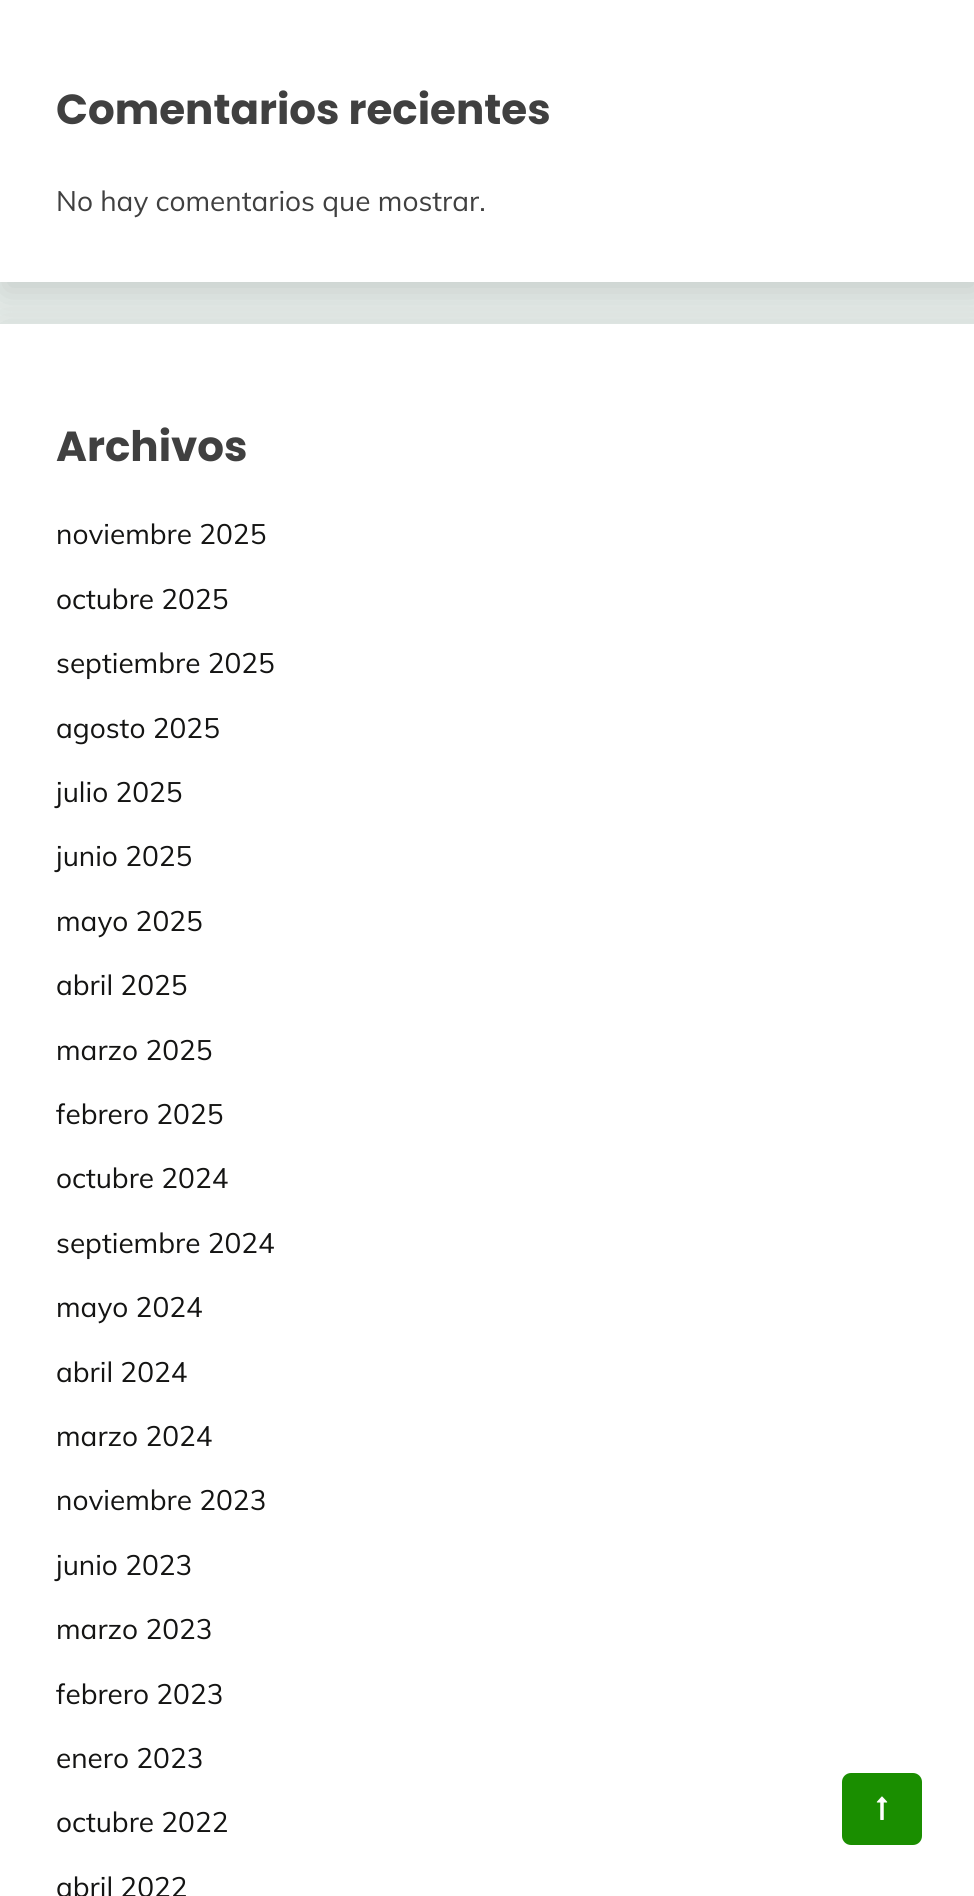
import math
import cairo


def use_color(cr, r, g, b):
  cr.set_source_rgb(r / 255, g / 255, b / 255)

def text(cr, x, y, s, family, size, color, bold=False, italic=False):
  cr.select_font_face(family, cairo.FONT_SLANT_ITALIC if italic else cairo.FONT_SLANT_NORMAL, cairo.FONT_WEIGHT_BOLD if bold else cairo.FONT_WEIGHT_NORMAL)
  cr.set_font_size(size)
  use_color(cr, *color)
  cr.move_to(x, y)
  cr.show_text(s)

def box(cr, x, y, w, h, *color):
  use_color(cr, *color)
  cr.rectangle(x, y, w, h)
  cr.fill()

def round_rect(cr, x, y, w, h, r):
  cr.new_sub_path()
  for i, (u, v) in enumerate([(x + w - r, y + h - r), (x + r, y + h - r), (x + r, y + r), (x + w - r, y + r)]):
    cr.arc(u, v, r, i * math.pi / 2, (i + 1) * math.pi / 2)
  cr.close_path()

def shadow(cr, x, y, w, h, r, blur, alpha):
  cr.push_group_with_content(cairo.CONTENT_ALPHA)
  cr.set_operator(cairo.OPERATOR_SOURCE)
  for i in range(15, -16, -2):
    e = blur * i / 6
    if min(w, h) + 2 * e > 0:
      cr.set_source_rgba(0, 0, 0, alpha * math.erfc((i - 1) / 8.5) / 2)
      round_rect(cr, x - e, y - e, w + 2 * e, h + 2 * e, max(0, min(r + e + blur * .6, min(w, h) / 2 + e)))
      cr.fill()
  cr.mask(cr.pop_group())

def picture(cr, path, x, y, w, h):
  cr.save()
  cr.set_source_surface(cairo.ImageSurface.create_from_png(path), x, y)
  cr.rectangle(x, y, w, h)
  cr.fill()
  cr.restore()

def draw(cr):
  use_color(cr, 229, 236, 233)
  cr.paint()
  use_color(cr, 0, 0, 0)
  shadow(cr, 4, -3, 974, 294, 0, 17.5, 0.14)
  box(cr, 0, 0, 974, 282, 255, 255, 255)
  use_color(cr, 0, 0, 0)
  shadow(cr, 4, 333, 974, 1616, 0, 17.5, 0.14)
  box(cr, 0, 324, 974, 1572, 255, 255, 255)
  use_color(cr, 26, 142, 0)
  round_rect(cr, 842, 1773, 80, 72, 9)
  cr.fill()
  picture(cr, "img_01.png", 876, 1796, 12, 24)
  text(cr, 56, 124, "Comentarios recientes", "Poppins", 42, (64, 64, 64), bold=True)
  text(cr, 56, 211, "No hay comentarios que mostrar.", "Muli", 28, (64, 64, 64))
  text(cr, 56, 461, "Archivos", "Poppins", 42, (64, 64, 64), bold=True)
  text(cr, 56, 544, "noviembre 2025", "Muli", 28, (20, 20, 19))
  text(cr, 56, 609, "octubre 2025", "Muli", 28, (20, 20, 19))
  text(cr, 56, 673, "septiembre 2025", "Muli", 28, (20, 20, 19))
  text(cr, 56, 738, "agosto 2025", "Muli", 28, (20, 20, 19))
  text(cr, 56, 802, "julio 2025", "Muli", 28, (20, 20, 19))
  text(cr, 56, 866, "junio 2025", "Muli", 28, (20, 20, 19))
  text(cr, 56, 931, "mayo 2025", "Muli", 28, (20, 20, 19))
  text(cr, 56, 995, "abril 2025", "Muli", 28, (20, 20, 19))
  text(cr, 56, 1060, "marzo 2025", "Muli", 28, (20, 20, 19))
  text(cr, 56, 1124, "febrero 2025", "Muli", 28, (20, 20, 19))
  text(cr, 56, 1188, "octubre 2024", "Muli", 28, (20, 20, 19))
  text(cr, 56, 1253, "septiembre 2024", "Muli", 28, (20, 20, 19))
  text(cr, 56, 1317, "mayo 2024", "Muli", 28, (20, 20, 19))
  text(cr, 56, 1382, "abril 2024", "Muli", 28, (20, 20, 19))
  text(cr, 56, 1446, "marzo 2024", "Muli", 28, (20, 20, 19))
  text(cr, 56, 1510, "noviembre 2023", "Muli", 28, (20, 20, 19))
  text(cr, 56, 1575, "junio 2023", "Muli", 28, (20, 20, 19))
  text(cr, 56, 1639, "marzo 2023", "Muli", 28, (20, 20, 19))
  text(cr, 56, 1704, "febrero 2023", "Muli", 28, (20, 20, 19))
  text(cr, 56, 1768, "enero 2023", "Muli", 28, (20, 20, 19))
  text(cr, 56, 1832, "octubre 2022", "Muli", 28, (20, 20, 19))
  text(cr, 56, 1897, "abril 2022", "Muli", 28, (20, 20, 19))


surface = cairo.ImageSurface(cairo.FORMAT_RGB24, 974, 1896)
cr = cairo.Context(surface)
options = cairo.FontOptions()
options.set_hint_metrics(cairo.HINT_METRICS_OFF)
options.set_hint_style(cairo.HINT_STYLE_NONE)
cr.set_font_options(options)
cr.set_miter_limit(4)
draw(cr)
surface.write_to_png("out.png")
